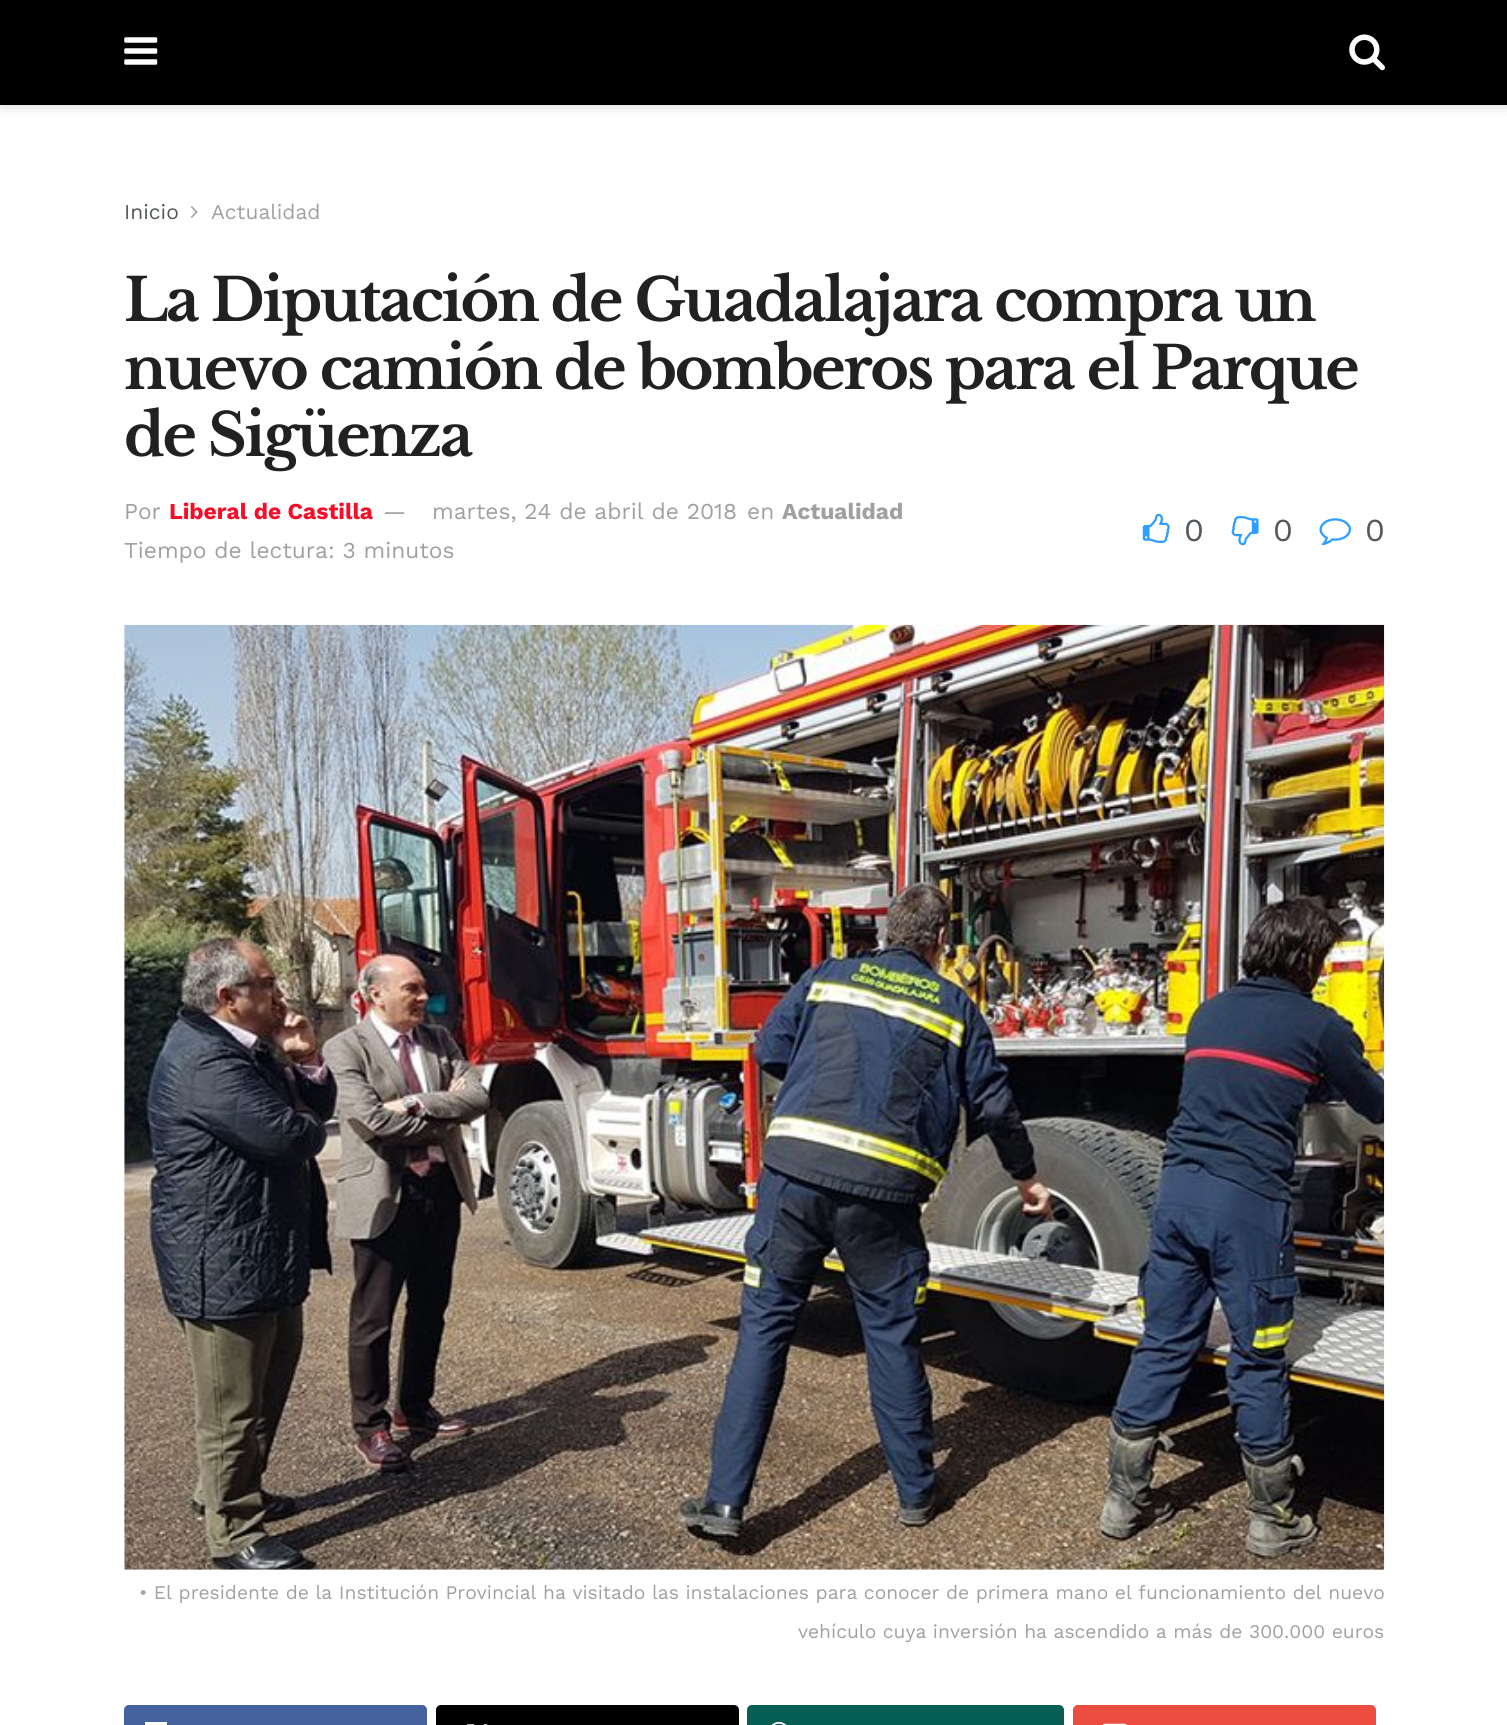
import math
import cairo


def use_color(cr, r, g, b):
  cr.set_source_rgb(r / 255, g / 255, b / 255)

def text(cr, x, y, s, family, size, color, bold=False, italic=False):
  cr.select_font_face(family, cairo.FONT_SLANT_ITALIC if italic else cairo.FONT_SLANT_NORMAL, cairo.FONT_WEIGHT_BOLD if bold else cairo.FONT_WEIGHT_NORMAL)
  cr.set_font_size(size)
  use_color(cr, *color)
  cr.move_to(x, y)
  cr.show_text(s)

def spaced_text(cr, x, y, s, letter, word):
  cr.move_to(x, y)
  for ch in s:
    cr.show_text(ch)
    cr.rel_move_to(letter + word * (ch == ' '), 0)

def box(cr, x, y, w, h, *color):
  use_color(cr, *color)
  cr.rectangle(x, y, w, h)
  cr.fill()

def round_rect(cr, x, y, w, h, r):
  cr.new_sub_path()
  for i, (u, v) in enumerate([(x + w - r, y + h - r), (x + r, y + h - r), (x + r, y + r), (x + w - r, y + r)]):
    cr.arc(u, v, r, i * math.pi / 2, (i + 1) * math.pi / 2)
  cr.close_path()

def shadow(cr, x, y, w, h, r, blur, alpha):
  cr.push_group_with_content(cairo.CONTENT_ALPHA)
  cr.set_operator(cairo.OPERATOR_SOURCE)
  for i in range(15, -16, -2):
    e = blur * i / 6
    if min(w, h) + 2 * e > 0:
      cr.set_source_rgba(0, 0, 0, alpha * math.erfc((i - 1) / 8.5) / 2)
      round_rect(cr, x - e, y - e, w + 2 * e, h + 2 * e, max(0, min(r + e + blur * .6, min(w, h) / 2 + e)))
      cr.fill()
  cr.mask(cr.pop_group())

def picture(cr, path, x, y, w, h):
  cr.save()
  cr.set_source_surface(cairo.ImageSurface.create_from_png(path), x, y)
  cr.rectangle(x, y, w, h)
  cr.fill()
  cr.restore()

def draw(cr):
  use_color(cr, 255, 255, 255)
  cr.paint()
  use_color(cr, 0, 0, 0)
  shadow(cr, 0, 4, 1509, 105, 0, 5, 0.1)
  box(cr, 0, 0, 1507, 105, 0, 0, 0)
  picture(cr, "img_01.png", 124, 37, 34, 28)
  picture(cr, "img_02.png", 1349, 34, 36, 37)
  picture(cr, "img_03.png", 191, 206, 7, 12)
  picture(cr, "img_04.png", 1142, 513, 28, 30)
  picture(cr, "img_05.png", 1231, 516, 28, 30)
  picture(cr, "img_06.png", 1319, 518, 32, 28)
  box(cr, 124, 625, 1260, 945, 247, 247, 247)
  picture(cr, "img_07.png", 124, 624, 1261, 946)
  use_color(cr, 69, 98, 159)
  round_rect(cr, 124, 1705, 303, 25, 5)
  cr.fill()
  box(cr, 145, 1722, 22, 3, 255, 255, 255)
  use_color(cr, 0, 0, 0)
  round_rect(cr, 436, 1705, 303, 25, 5)
  cr.fill()
  picture(cr, "img_08.png", 466, 1724, 22, 1)
  use_color(cr, 7, 94, 84)
  round_rect(cr, 747, 1705, 317, 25, 5)
  cr.fill()
  picture(cr, "img_09.png", 771, 1721, 16, 4)
  use_color(cr, 235, 77, 63)
  round_rect(cr, 1073, 1705, 303, 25, 5)
  cr.fill()
  picture(cr, "img_10.png", 1102, 1723, 25, 2)
  text(cr, 124, 219, "Inicio", "Work Sans", 21, (83, 88, 92))
  text(cr, 211, 219, "Actualidad", "Work Sans", 21, (160, 160, 160))
  cr.select_font_face("Libre Baskerville", cairo.FONT_SLANT_NORMAL, cairo.FONT_WEIGHT_BOLD)
  cr.set_font_size(58.8)
  use_color(cr, 33, 33, 33)
  spaced_text(cr, 124, 321, "La Diputación de Guadalajara compra un", -2.35, 0)
  spaced_text(cr, 124, 389, "nuevo camión de bomberos para el Parque", -2.35, 0)
  spaced_text(cr, 124, 456, "de Sigüenza", -2.35, 0)
  text(cr, 124, 519, "Por", "Work Sans", 22.75, (160, 160, 160))
  text(cr, 169, 519, "Liberal de Castilla", "Work Sans", 22.75, (247, 13, 40), bold=True)
  text(cr, 383, 519, "—", "Work Sans", 22.75, (160, 160, 160))
  text(cr, 432, 519, "martes, 24 de abril de 2018", "Work Sans", 22.75, (160, 160, 160))
  text(cr, 747, 519, "en", "Work Sans", 22.75, (160, 160, 160))
  text(cr, 782, 519, "Actualidad", "Work Sans", 22.75, (160, 160, 160), bold=True)
  text(cr, 124, 558, "Tiempo de lectura: 3 minutos", "Work Sans", 22.75, (160, 160, 160))
  text(cr, 1184, 541, "0", "Work Sans", 32, (83, 88, 92))
  text(cr, 1273, 541, "0", "Work Sans", 32, (83, 88, 92))
  text(cr, 1365, 541, "0", "Work Sans", 32, (83, 88, 92))
  text(cr, 139, 1599, "• El presidente de la Institución Provincial ha visitado las instalaciones para conocer de primera mano el funcionamiento del nuevo", "Work Sans", 19.25, (160, 160, 160))
  text(cr, 798, 1638, "vehículo cuya inversión ha ascendido a más de 300.000 euros", "Work Sans", 19.25, (160, 160, 160))


surface = cairo.ImageSurface(cairo.FORMAT_RGB24, 1507, 1725)
cr = cairo.Context(surface)
options = cairo.FontOptions()
options.set_hint_metrics(cairo.HINT_METRICS_OFF)
options.set_hint_style(cairo.HINT_STYLE_NONE)
cr.set_font_options(options)
cr.set_miter_limit(4)
draw(cr)
surface.write_to_png("out.png")
